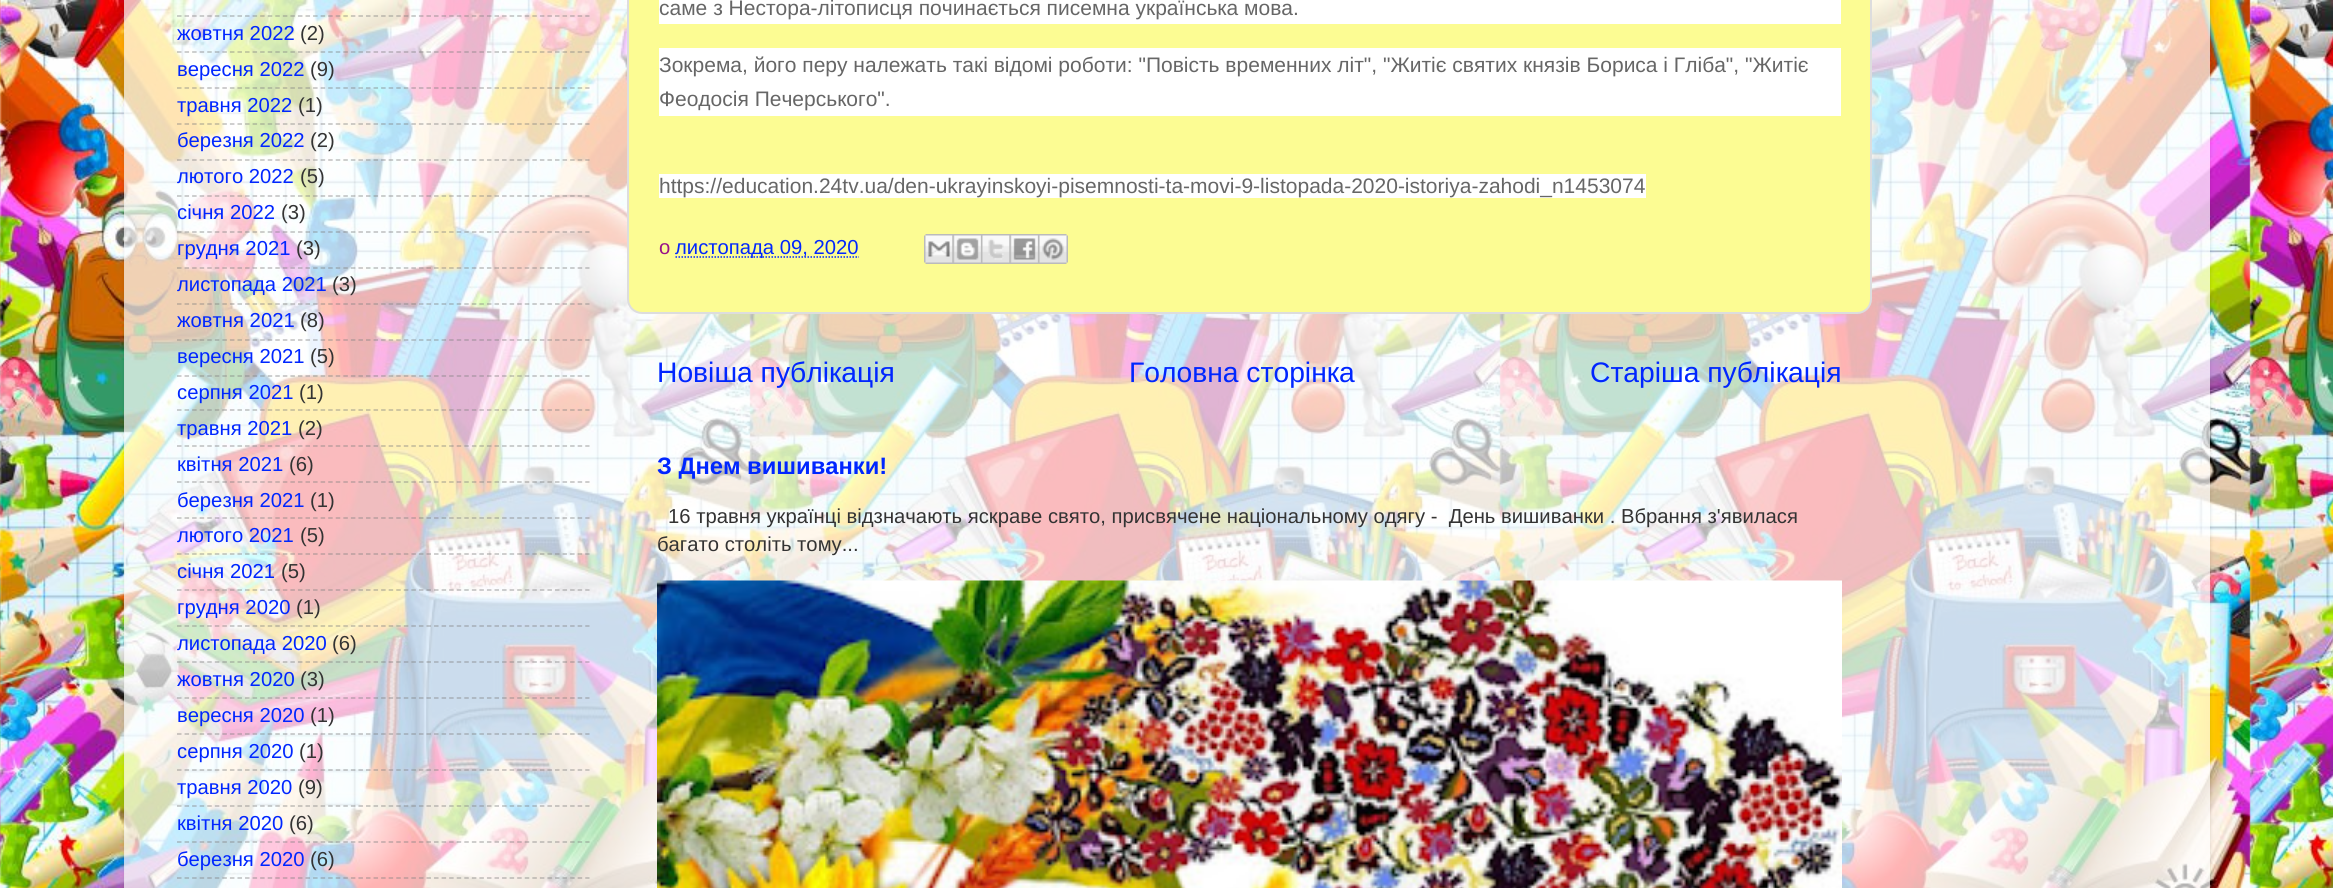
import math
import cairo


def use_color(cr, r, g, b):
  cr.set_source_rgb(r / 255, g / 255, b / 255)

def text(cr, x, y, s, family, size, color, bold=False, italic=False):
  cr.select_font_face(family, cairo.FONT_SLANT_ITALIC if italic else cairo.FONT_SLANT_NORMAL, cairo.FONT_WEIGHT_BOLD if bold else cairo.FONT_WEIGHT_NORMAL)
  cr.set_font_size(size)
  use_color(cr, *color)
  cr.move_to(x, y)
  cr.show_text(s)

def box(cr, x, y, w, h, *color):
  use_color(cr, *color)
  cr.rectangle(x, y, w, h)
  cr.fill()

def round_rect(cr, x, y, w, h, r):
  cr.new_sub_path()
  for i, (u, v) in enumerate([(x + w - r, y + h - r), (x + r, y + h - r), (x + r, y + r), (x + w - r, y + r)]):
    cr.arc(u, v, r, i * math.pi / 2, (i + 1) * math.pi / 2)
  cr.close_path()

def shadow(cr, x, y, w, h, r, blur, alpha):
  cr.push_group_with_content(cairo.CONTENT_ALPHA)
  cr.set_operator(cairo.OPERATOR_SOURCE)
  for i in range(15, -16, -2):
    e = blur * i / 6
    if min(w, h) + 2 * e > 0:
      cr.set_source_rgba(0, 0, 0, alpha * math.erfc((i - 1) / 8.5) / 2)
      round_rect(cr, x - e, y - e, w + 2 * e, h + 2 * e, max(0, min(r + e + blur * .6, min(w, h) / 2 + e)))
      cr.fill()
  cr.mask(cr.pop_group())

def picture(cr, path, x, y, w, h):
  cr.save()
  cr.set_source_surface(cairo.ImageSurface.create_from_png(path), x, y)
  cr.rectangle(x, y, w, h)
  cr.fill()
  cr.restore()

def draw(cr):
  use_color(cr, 255, 255, 255)
  cr.paint()
  picture(cr, "img_01.png", 0, 0, 2333, 888)
  cr.save()
  cr.set_fill_rule(cairo.FILL_RULE_EVEN_ODD)
  cr.new_path()
  cr.move_to(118, 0)
  cr.line_to(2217, 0)
  cr.line_to(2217, 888)
  cr.line_to(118, 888)
  cr.close_path()
  cr.move_to(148, -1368)
  cr.line_to(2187, -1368)
  cr.curve_to(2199.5, -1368, 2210, -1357.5, 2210, -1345)
  cr.line_to(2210, 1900)
  cr.curve_to(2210, 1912.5, 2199.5, 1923, 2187, 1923)
  cr.line_to(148, 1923)
  cr.curve_to(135.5, 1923, 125, 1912.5, 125, 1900)
  cr.line_to(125, -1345)
  cr.curve_to(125, -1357.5, 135.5, -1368, 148, -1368)
  cr.close_path()
  cr.clip()
  use_color(cr, 0, 0, 0)
  shadow(cr, 125, -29, 2085, 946, 23, 2, 0.15)
  cr.restore()
  cr.set_source_rgba(1, 1, 1, 0.7)
  cr.rectangle(124, 0, 2086, 888)
  cr.fill()
  cr.new_path()
  cr.move_to(177, 16)
  cr.line_to(589.5, 16)
  cr.set_source_rgba(0.502, 0.502, 0.502, 0.5)
  cr.set_line_width(1.5)
  cr.set_dash([4.5, 3.06])
  cr.stroke()
  cr.new_path()
  cr.move_to(177, 52)
  cr.line_to(589.5, 52)
  cr.stroke()
  cr.new_path()
  cr.move_to(177, 88)
  cr.line_to(589.5, 88)
  cr.stroke()
  cr.new_path()
  cr.move_to(177, 124)
  cr.line_to(589.5, 124)
  cr.stroke()
  cr.new_path()
  cr.move_to(177, 160)
  cr.line_to(589.5, 160)
  cr.stroke()
  cr.new_path()
  cr.move_to(177, 196)
  cr.line_to(589.5, 196)
  cr.stroke()
  cr.new_path()
  cr.move_to(177, 232)
  cr.line_to(589.5, 232)
  cr.stroke()
  cr.new_path()
  cr.move_to(177, 268)
  cr.line_to(589.5, 268)
  cr.stroke()
  cr.new_path()
  cr.move_to(177, 304)
  cr.line_to(589.5, 304)
  cr.stroke()
  cr.new_path()
  cr.move_to(177, 340)
  cr.line_to(589.5, 340)
  cr.stroke()
  cr.new_path()
  cr.move_to(177, 376)
  cr.line_to(589.5, 376)
  cr.stroke()
  cr.new_path()
  cr.move_to(177, 410)
  cr.line_to(589.5, 410)
  cr.stroke()
  cr.new_path()
  cr.move_to(177, 446)
  cr.line_to(589.5, 446)
  cr.stroke()
  cr.new_path()
  cr.move_to(177, 482)
  cr.line_to(589.5, 482)
  cr.stroke()
  cr.new_path()
  cr.move_to(177, 518)
  cr.line_to(589.5, 518)
  cr.stroke()
  cr.new_path()
  cr.move_to(177, 554)
  cr.line_to(589.5, 554)
  cr.stroke()
  cr.new_path()
  cr.move_to(177, 590)
  cr.line_to(589.5, 590)
  cr.stroke()
  cr.new_path()
  cr.move_to(177, 626)
  cr.line_to(589.5, 626)
  cr.stroke()
  cr.new_path()
  cr.move_to(177, 662)
  cr.line_to(589.5, 662)
  cr.stroke()
  cr.new_path()
  cr.move_to(177, 698)
  cr.line_to(589.5, 698)
  cr.stroke()
  cr.new_path()
  cr.move_to(177, 734)
  cr.line_to(589.5, 734)
  cr.stroke()
  cr.new_path()
  cr.move_to(177, 770)
  cr.line_to(589.5, 770)
  cr.stroke()
  cr.new_path()
  cr.move_to(177, 806)
  cr.line_to(589.5, 806)
  cr.stroke()
  cr.new_path()
  cr.move_to(177, 842)
  cr.line_to(589.5, 842)
  cr.stroke()
  cr.new_path()
  cr.move_to(177, 878)
  cr.line_to(589.5, 878)
  cr.stroke()
  use_color(cr, 252, 252, 147)
  round_rect(cr, 628, -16, 1243, 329, 14)
  cr.fill_preserve()
  use_color(cr, 221, 221, 221)
  cr.set_line_width(2)
  cr.set_dash([])
  cr.stroke()
  box(cr, 659, 0, 1182, 24, 255, 255, 255)
  box(cr, 659, 48, 1182, 68, 255, 255, 255)
  box(cr, 659, 174, 987, 24, 255, 255, 255)
  cr.new_path()
  cr.move_to(675.5, 257)
  cr.line_to(859, 257)
  use_color(cr, 0, 38, 255)
  cr.set_line_width(1.5)
  cr.set_dash([1.5, 1.5])
  cr.stroke()
  picture(cr, "img_02.png", 924, 234, 29, 30)
  picture(cr, "img_03.png", 952, 234, 29, 30)
  picture(cr, "img_04.png", 981, 234, 29, 30)
  picture(cr, "img_05.png", 1009, 234, 29, 30)
  picture(cr, "img_06.png", 1038, 234, 30, 30)
  picture(cr, "img_07.png", 657, 580, 1185, 308)
  text(cr, 177, 40, "жовтня 2022", "Liberation Sans", 20.25, (0, 38, 255))
  text(cr, 300, 40, "(2)", "Liberation Sans", 20.25, (51, 51, 51))
  text(cr, 177, 76, "вересня 2022", "Liberation Sans", 20.25, (0, 38, 255))
  text(cr, 310, 76, "(9)", "Liberation Sans", 20.25, (51, 51, 51))
  text(cr, 177, 112, "травня 2022", "Liberation Sans", 20.25, (0, 38, 255))
  text(cr, 298, 112, "(1)", "Liberation Sans", 20.25, (51, 51, 51))
  text(cr, 177, 147, "березня 2022", "Liberation Sans", 20.25, (0, 38, 255))
  text(cr, 310, 147, "(2)", "Liberation Sans", 20.25, (51, 51, 51))
  text(cr, 177, 183, "лютого 2022", "Liberation Sans", 20.25, (0, 38, 255))
  text(cr, 300, 183, "(5)", "Liberation Sans", 20.25, (51, 51, 51))
  text(cr, 177, 219, "січня 2022", "Liberation Sans", 20.25, (0, 38, 255))
  text(cr, 281, 219, "(3)", "Liberation Sans", 20.25, (51, 51, 51))
  text(cr, 177, 255, "грудня 2021", "Liberation Sans", 20.25, (0, 38, 255))
  text(cr, 296, 255, "(3)", "Liberation Sans", 20.25, (51, 51, 51))
  text(cr, 177, 291, "листопада 2021", "Liberation Sans", 20.25, (0, 38, 255))
  text(cr, 332, 291, "(3)", "Liberation Sans", 20.25, (51, 51, 51))
  text(cr, 177, 327, "жовтня 2021", "Liberation Sans", 20.25, (0, 38, 255))
  text(cr, 300, 327, "(8)", "Liberation Sans", 20.25, (51, 51, 51))
  text(cr, 177, 363, "вересня 2021", "Liberation Sans", 20.25, (0, 38, 255))
  text(cr, 310, 363, "(5)", "Liberation Sans", 20.25, (51, 51, 51))
  text(cr, 177, 399, "серпня 2021", "Liberation Sans", 20.25, (0, 38, 255))
  text(cr, 299, 399, "(1)", "Liberation Sans", 20.25, (51, 51, 51))
  text(cr, 177, 435, "травня 2021", "Liberation Sans", 20.25, (0, 38, 255))
  text(cr, 298, 435, "(2)", "Liberation Sans", 20.25, (51, 51, 51))
  text(cr, 177, 471, "квітня 2021", "Liberation Sans", 20.25, (0, 38, 255))
  text(cr, 289, 471, "(6)", "Liberation Sans", 20.25, (51, 51, 51))
  text(cr, 177, 507, "березня 2021", "Liberation Sans", 20.25, (0, 38, 255))
  text(cr, 310, 507, "(1)", "Liberation Sans", 20.25, (51, 51, 51))
  text(cr, 177, 542, "лютого 2021", "Liberation Sans", 20.25, (0, 38, 255))
  text(cr, 300, 542, "(5)", "Liberation Sans", 20.25, (51, 51, 51))
  text(cr, 177, 578, "січня 2021", "Liberation Sans", 20.25, (0, 38, 255))
  text(cr, 281, 578, "(5)", "Liberation Sans", 20.25, (51, 51, 51))
  text(cr, 177, 614, "грудня 2020", "Liberation Sans", 20.25, (0, 38, 255))
  text(cr, 296, 614, "(1)", "Liberation Sans", 20.25, (51, 51, 51))
  text(cr, 177, 650, "листопада 2020", "Liberation Sans", 20.25, (0, 38, 255))
  text(cr, 332, 650, "(6)", "Liberation Sans", 20.25, (51, 51, 51))
  text(cr, 177, 686, "жовтня 2020", "Liberation Sans", 20.25, (0, 38, 255))
  text(cr, 300, 686, "(3)", "Liberation Sans", 20.25, (51, 51, 51))
  text(cr, 177, 722, "вересня 2020", "Liberation Sans", 20.25, (0, 38, 255))
  text(cr, 310, 722, "(1)", "Liberation Sans", 20.25, (51, 51, 51))
  text(cr, 177, 758, "серпня 2020", "Liberation Sans", 20.25, (0, 38, 255))
  text(cr, 299, 758, "(1)", "Liberation Sans", 20.25, (51, 51, 51))
  text(cr, 177, 794, "травня 2020", "Liberation Sans", 20.25, (0, 38, 255))
  text(cr, 298, 794, "(9)", "Liberation Sans", 20.25, (51, 51, 51))
  text(cr, 177, 830, "квітня 2020", "Liberation Sans", 20.25, (0, 38, 255))
  text(cr, 289, 830, "(6)", "Liberation Sans", 20.25, (51, 51, 51))
  text(cr, 177, 866, "березня 2020", "Liberation Sans", 20.25, (0, 38, 255))
  text(cr, 310, 866, "(6)", "Liberation Sans", 20.25, (51, 51, 51))
  text(cr, 659, 15, "саме з Нестора-літописця починається писемна українська мова.", "Liberation Sans", 21, (102, 102, 102))
  text(cr, 659, 72, "Зокрема, його перу належать такі відомі роботи: \"Повість временних літ\", \"Житіє святих князів Бориса і Гліба\", \"Житіє", "Liberation Sans", 21, (102, 102, 102))
  text(cr, 659, 106, "Феодосія Печерського\".", "Liberation Sans", 21, (102, 102, 102))
  text(cr, 659, 193, "https://education.24tv.ua/den-ukrayinskoyi-pisemnosti-ta-movi-9-listopada-2020-istoriya-zahodi_n1453074", "Liberation Sans", 21, (102, 102, 102))
  text(cr, 659, 254, "о", "Liberation Sans", 20.25, (153, 17, 136))
  text(cr, 675, 254, "листопада 09, 2020", "Liberation Sans", 20.25, (0, 38, 255))
  text(cr, 657, 382, "Новіша публікація", "Liberation Sans", 28.25, (0, 38, 255))
  text(cr, 1129, 382, "Головна сторінка", "Liberation Sans", 28.25, (0, 38, 255))
  text(cr, 1590, 382, "Старіша публікація", "Liberation Sans", 28.25, (0, 38, 255))
  text(cr, 657, 474, "З Днем вишиванки!", "Liberation Sans", 23.75, (0, 38, 255), bold=True)
  text(cr, 668, 523, "16 травня українці відзначають яскраве свято, присвячене національному одягу -  День вишиванки . Вбрання з'явилася", "Liberation Sans", 20.25, (51, 51, 51))
  text(cr, 657, 551, "багато століть тому...", "Liberation Sans", 20.25, (51, 51, 51))


surface = cairo.ImageSurface(cairo.FORMAT_RGB24, 2333, 888)
cr = cairo.Context(surface)
options = cairo.FontOptions()
options.set_hint_metrics(cairo.HINT_METRICS_OFF)
options.set_hint_style(cairo.HINT_STYLE_NONE)
cr.set_font_options(options)
cr.set_miter_limit(4)
draw(cr)
surface.write_to_png("out.png")
